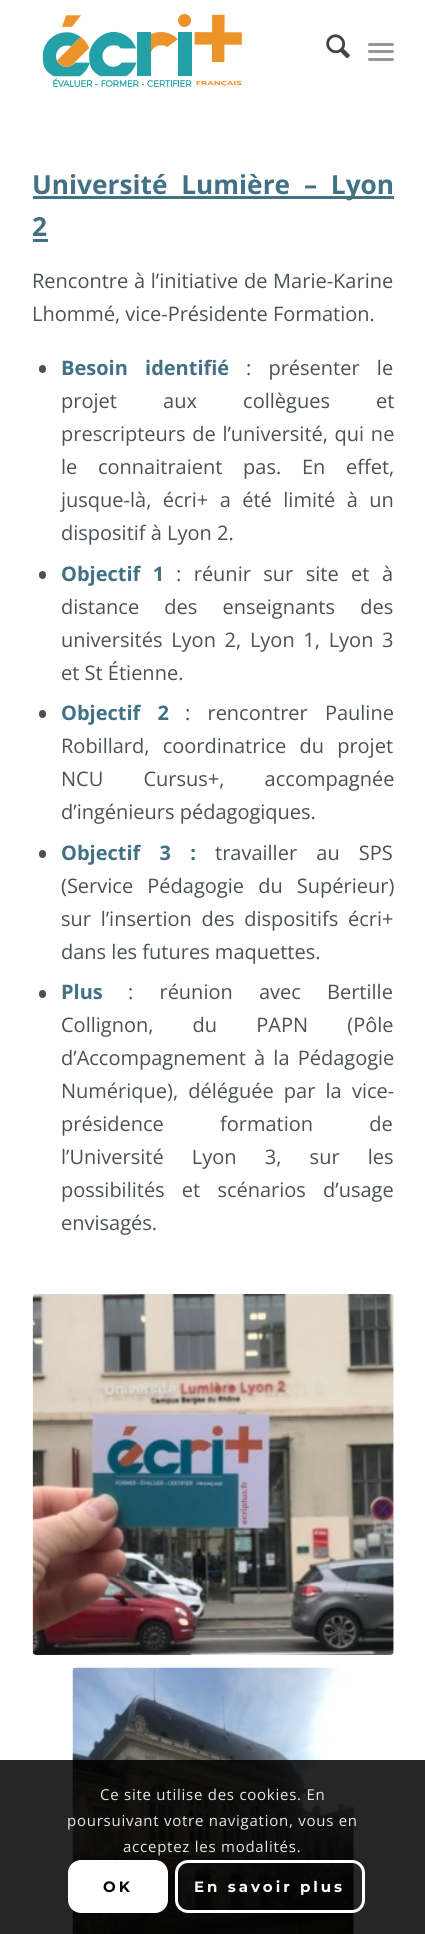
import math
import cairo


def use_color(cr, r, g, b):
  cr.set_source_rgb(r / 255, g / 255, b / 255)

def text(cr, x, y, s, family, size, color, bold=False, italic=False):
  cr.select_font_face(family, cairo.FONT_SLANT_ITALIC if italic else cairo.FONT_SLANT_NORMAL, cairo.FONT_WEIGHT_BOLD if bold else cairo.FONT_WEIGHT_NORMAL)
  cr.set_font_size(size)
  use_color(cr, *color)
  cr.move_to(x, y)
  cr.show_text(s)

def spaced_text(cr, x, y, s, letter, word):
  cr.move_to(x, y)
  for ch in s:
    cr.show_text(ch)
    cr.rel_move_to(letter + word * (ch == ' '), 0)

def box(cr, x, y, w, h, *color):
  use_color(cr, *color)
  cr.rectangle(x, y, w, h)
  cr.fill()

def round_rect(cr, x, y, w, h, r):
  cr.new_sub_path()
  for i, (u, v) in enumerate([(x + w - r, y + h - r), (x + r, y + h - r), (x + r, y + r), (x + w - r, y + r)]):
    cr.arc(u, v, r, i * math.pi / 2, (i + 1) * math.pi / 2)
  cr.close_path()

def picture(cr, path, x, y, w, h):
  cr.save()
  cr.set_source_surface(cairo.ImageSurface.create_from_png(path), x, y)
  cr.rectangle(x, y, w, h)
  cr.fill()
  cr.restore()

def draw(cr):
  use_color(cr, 255, 255, 255)
  cr.paint()
  picture(cr, "img_01.png", 42, 14, 200, 73)
  picture(cr, "img_02.png", 326, 34, 24, 25)
  use_color(cr, 150, 150, 150)
  round_rect(cr, 368, 50, 26, 3, 1.5)
  cr.fill()
  round_rect(cr, 368, 43, 26, 3, 1.5)
  cr.fill()
  round_rect(cr, 368, 58, 26, 3, 1.5)
  cr.fill()
  box(cr, 33, 196, 361, 3, 66, 113, 133)
  box(cr, 33, 239, 15, 3, 66, 113, 133)
  use_color(cr, 75, 81, 84)
  round_rect(cr, 39, 365, 7, 8, 3.5)
  cr.fill()
  round_rect(cr, 39, 571, 7, 8, 3.5)
  cr.fill()
  round_rect(cr, 39, 710, 7, 8, 3.5)
  cr.fill()
  round_rect(cr, 39, 850, 7, 8, 3.5)
  cr.fill()
  round_rect(cr, 39, 990, 7, 8, 3.5)
  cr.fill()
  picture(cr, "img_03.png", 32, 1294, 362, 361)
  picture(cr, "img_04.png", 72, 1667, 282, 267)
  cr.set_source_rgba(0, 0, 0, 0.85)
  cr.rectangle(0, 1760, 425, 174)
  cr.fill()
  use_color(cr, 255, 255, 255)
  round_rect(cr, 68, 1860, 100, 53, 13)
  cr.fill()
  round_rect(cr, 176.5, 1861.5, 187, 50, 11.5)
  cr.set_line_width(3)
  cr.stroke()
  cr.select_font_face("Open Sans", cairo.FONT_SLANT_NORMAL, cairo.FONT_WEIGHT_BOLD)
  cr.set_font_size(26.25)
  use_color(cr, 66, 113, 133)
  spaced_text(cr, 32, 194, "Université Lumière – Lyon", 0, 7)
  text(cr, 32, 236, "2", "Open Sans", 26.25, (66, 113, 133), bold=True)
  cr.select_font_face("Open Sans")
  cr.set_font_size(20)
  use_color(cr, 75, 81, 84)
  spaced_text(cr, 32, 288, "Rencontre à l’initiative de Marie-Karine", 0, 0.5)
  text(cr, 32, 321, "Lhommé, vice-Présidente Formation.", "Open Sans", 20, (75, 81, 84))
  cr.select_font_face("Open Sans", cairo.FONT_SLANT_NORMAL, cairo.FONT_WEIGHT_BOLD)
  use_color(cr, 66, 113, 133)
  spaced_text(cr, 61, 375, "Besoin identifié", 0, 12)
  cr.select_font_face("Open Sans")
  use_color(cr, 75, 81, 84)
  spaced_text(cr, 246, 375, ": présenter le", 0, 12)
  spaced_text(cr, 61, 408, "projet aux collègues et", 0, 41)
  spaced_text(cr, 61, 441, "prescripteurs de l’université, qui ne", 0, 1.5)
  spaced_text(cr, 61, 474, "le connaitraient pas. En effet,", 0, 15.5)
  spaced_text(cr, 61, 507, "jusque-là, écri+ a été limité à un", 0, 6.25)
  text(cr, 61, 540, "dispositif à Lyon 2.", "Open Sans", 20, (75, 81, 84))
  cr.select_font_face("Open Sans", cairo.FONT_SLANT_NORMAL, cairo.FONT_WEIGHT_BOLD)
  use_color(cr, 66, 113, 133)
  spaced_text(cr, 61, 581, "Objectif 1", 0, 7.25)
  cr.select_font_face("Open Sans")
  use_color(cr, 75, 81, 84)
  spaced_text(cr, 176, 581, ": réunir sur site et à", 0, 7.25)
  spaced_text(cr, 61, 614, "distance des enseignants des", 0, 20)
  spaced_text(cr, 61, 647, "universités Lyon 2, Lyon 1, Lyon 3", 0, 3.5)
  text(cr, 61, 680, "et St Étienne.", "Open Sans", 20, (75, 81, 84))
  cr.select_font_face("Open Sans", cairo.FONT_SLANT_NORMAL, cairo.FONT_WEIGHT_BOLD)
  use_color(cr, 66, 113, 133)
  spaced_text(cr, 61, 720, "Objectif 2", 0, 12)
  cr.select_font_face("Open Sans")
  use_color(cr, 75, 81, 84)
  spaced_text(cr, 185, 720, ": rencontrer Pauline", 0, 12)
  spaced_text(cr, 61, 753, "Robillard, coordinatrice du projet", 0, 8)
  spaced_text(cr, 61, 786, "NCU Cursus+, accompagnée", 0, 35)
  text(cr, 61, 819, "d’ingénieurs pédagogiques.", "Open Sans", 20, (75, 81, 84))
  cr.select_font_face("Open Sans", cairo.FONT_SLANT_NORMAL, cairo.FONT_WEIGHT_BOLD)
  use_color(cr, 66, 113, 133)
  spaced_text(cr, 61, 860, "Objectif 3 :", 0, 14)
  cr.select_font_face("Open Sans")
  use_color(cr, 75, 81, 84)
  spaced_text(cr, 215, 860, "travailler au SPS", 0, 14)
  spaced_text(cr, 61, 893, "(Service Pédagogie du Supérieur)", 0, 9)
  spaced_text(cr, 61, 926, "sur l’insertion des dispositifs écri+", 0, 4.5)
  text(cr, 61, 959, "dans les futures maquettes.", "Open Sans", 20, (75, 81, 84))
  text(cr, 61, 999, "Plus", "Open Sans", 20, (66, 113, 133), bold=True)
  cr.select_font_face("Open Sans")
  use_color(cr, 75, 81, 84)
  spaced_text(cr, 128, 999, ": réunion avec Bertille", 0, 21)
  spaced_text(cr, 61, 1032, "Collignon, du PAPN (Pôle", 0, 34)
  spaced_text(cr, 61, 1065, "d’Accompagnement à la Pédagogie", 0, 3)
  spaced_text(cr, 61, 1098, "Numérique), déléguée par la vice-", 0, 5)
  spaced_text(cr, 61, 1131, "présidence formation de", 0, 51)
  spaced_text(cr, 61, 1164, "l’Université Lyon 3, sur les", 0, 23)
  spaced_text(cr, 61, 1197, "possibilités et scénarios d’usage", 0, 12)
  text(cr, 61, 1230, "envisagés.", "Open Sans", 20, (75, 81, 84))
  cr.set_font_size(15)
  use_color(cr, 231, 231, 231)
  spaced_text(cr, 100, 1800, "Ce site utilise des cookies. En", 0.75, 0)
  spaced_text(cr, 67, 1826, "poursuivant votre navigation, vous en", 0.75, 0)
  spaced_text(cr, 123, 1852, "acceptez les modalités.", 0.75, 0)
  cr.select_font_face("Montserrat", cairo.FONT_SLANT_NORMAL, cairo.FONT_WEIGHT_BOLD)
  use_color(cr, 0, 0, 0)
  spaced_text(cr, 103, 1892, "OK", 3, 0)
  use_color(cr, 255, 255, 255)
  spaced_text(cr, 194, 1892, "En savoir plus", 3, 0)


surface = cairo.ImageSurface(cairo.FORMAT_RGB24, 425, 1934)
cr = cairo.Context(surface)
options = cairo.FontOptions()
options.set_hint_metrics(cairo.HINT_METRICS_OFF)
options.set_hint_style(cairo.HINT_STYLE_NONE)
cr.set_font_options(options)
cr.set_miter_limit(4)
draw(cr)
surface.write_to_png("out.png")
